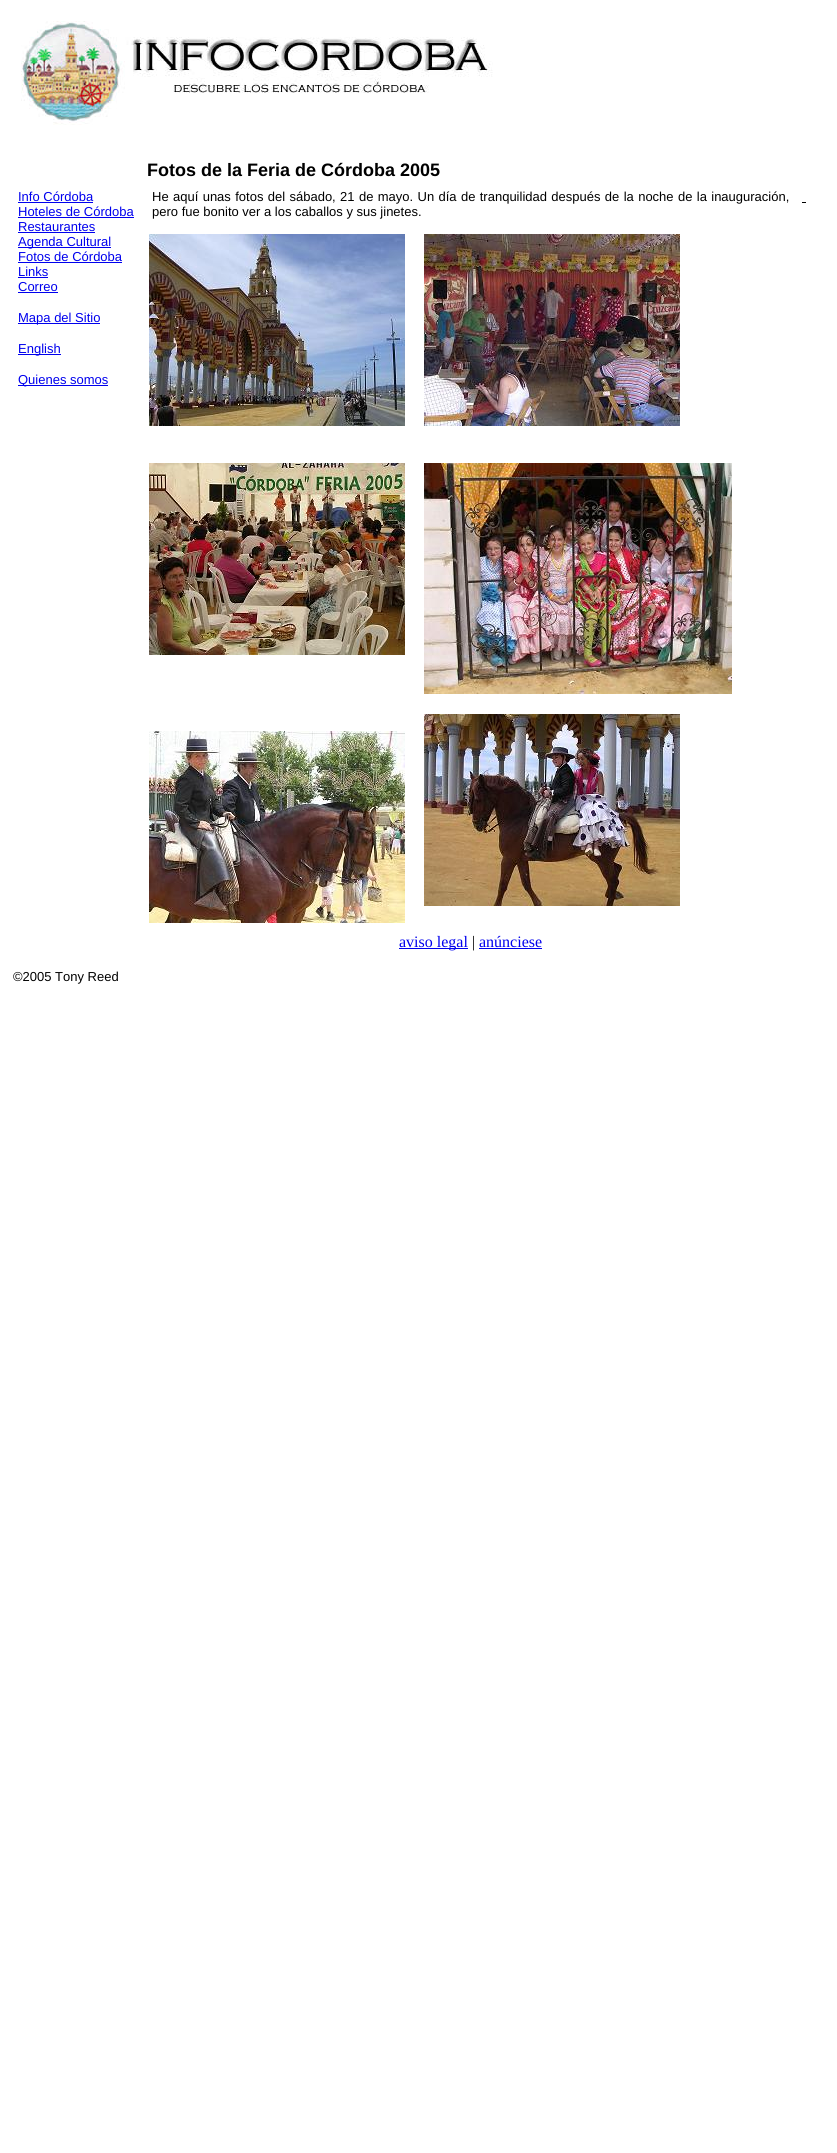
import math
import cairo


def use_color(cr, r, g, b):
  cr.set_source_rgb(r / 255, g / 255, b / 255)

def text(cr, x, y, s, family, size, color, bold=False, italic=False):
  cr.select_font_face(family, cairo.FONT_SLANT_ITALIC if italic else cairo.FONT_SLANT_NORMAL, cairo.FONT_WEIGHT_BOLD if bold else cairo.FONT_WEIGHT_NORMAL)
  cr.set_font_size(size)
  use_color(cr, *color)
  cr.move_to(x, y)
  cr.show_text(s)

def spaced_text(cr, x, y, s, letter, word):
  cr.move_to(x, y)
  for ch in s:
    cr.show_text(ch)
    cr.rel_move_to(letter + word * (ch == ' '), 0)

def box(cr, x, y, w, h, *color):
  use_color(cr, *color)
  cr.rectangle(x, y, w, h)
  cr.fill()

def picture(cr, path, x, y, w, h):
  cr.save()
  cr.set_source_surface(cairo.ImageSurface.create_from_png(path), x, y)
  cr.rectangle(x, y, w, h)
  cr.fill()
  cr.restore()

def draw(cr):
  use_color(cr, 255, 255, 255)
  cr.paint()
  picture(cr, "img_01.png", 21, 21, 472, 104)
  box(cr, 18, 202, 75, 1, 0, 0, 238)
  box(cr, 18, 217, 116, 1, 0, 0, 238)
  box(cr, 18, 232, 77, 1, 0, 0, 238)
  box(cr, 18, 247, 93, 1, 0, 0, 238)
  box(cr, 18, 262, 104, 1, 0, 0, 238)
  box(cr, 18, 277, 30, 1, 0, 0, 238)
  box(cr, 18, 292, 40, 1, 0, 0, 238)
  box(cr, 18, 323, 82, 1, 0, 0, 238)
  box(cr, 18, 354, 43, 1, 0, 0, 238)
  box(cr, 18, 385, 90, 1, 0, 0, 238)
  picture(cr, "img_02.png", 149, 234, 256, 192)
  picture(cr, "img_03.png", 424, 234, 256, 192)
  picture(cr, "img_04.png", 149, 463, 256, 192)
  picture(cr, "img_05.png", 424, 463, 308, 231)
  picture(cr, "img_06.png", 149, 731, 256, 192)
  picture(cr, "img_07.png", 424, 714, 256, 192)
  box(cr, 802, 202, 4, 1, 0, 0, 0)
  box(cr, 399, 948, 69, 1, 0, 0, 238)
  box(cr, 479, 948, 63, 1, 0, 0, 238)
  text(cr, 147, 176, "Fotos de la Feria de Córdoba 2005", "Liberation Sans", 18, (0, 0, 0), bold=True)
  text(cr, 18, 201, "Info Córdoba", "Liberation Sans", 13, (0, 0, 238))
  text(cr, 18, 216, "Hoteles de Córdoba", "Liberation Sans", 13, (0, 0, 238))
  text(cr, 18, 231, "Restaurantes", "Liberation Sans", 13, (0, 0, 238))
  text(cr, 18, 246, "Agenda Cultural", "Liberation Sans", 13, (0, 0, 238))
  text(cr, 18, 261, "Fotos de Córdoba", "Liberation Sans", 13, (0, 0, 238))
  text(cr, 18, 276, "Links", "Liberation Sans", 13, (0, 0, 238))
  text(cr, 18, 291, "Correo", "Liberation Sans", 13, (0, 0, 238))
  text(cr, 18, 322, "Mapa del Sitio", "Liberation Sans", 13, (0, 0, 238))
  text(cr, 18, 353, "English", "Liberation Sans", 13, (0, 0, 238))
  text(cr, 18, 384, "Quienes somos", "Liberation Sans", 13, (0, 0, 238))
  use_color(cr, 0, 0, 0)
  spaced_text(cr, 152, 201, "He aquí unas fotos del sábado, 21 de mayo. Un día de tranquilidad después de la noche de la inauguración,", 0, 0.75)
  text(cr, 152, 216, "pero fue bonito ver a los caballos y sus jinetes.", "Liberation Sans", 13, (0, 0, 0))
  text(cr, 399, 947, "aviso legal", "Liberation Serif", 16, (0, 0, 238))
  text(cr, 472, 947, "|", "Liberation Serif", 16, (0, 0, 0))
  text(cr, 479, 947, "anúnciese", "Liberation Serif", 16, (0, 0, 238))
  text(cr, 13, 981, "©2005 Tony Reed", "Liberation Sans", 13, (0, 0, 0))


surface = cairo.ImageSurface(cairo.FORMAT_RGB24, 837, 2153)
cr = cairo.Context(surface)
options = cairo.FontOptions()
options.set_hint_metrics(cairo.HINT_METRICS_OFF)
options.set_hint_style(cairo.HINT_STYLE_NONE)
cr.set_font_options(options)
cr.set_miter_limit(4)
draw(cr)
surface.write_to_png("out.png")
